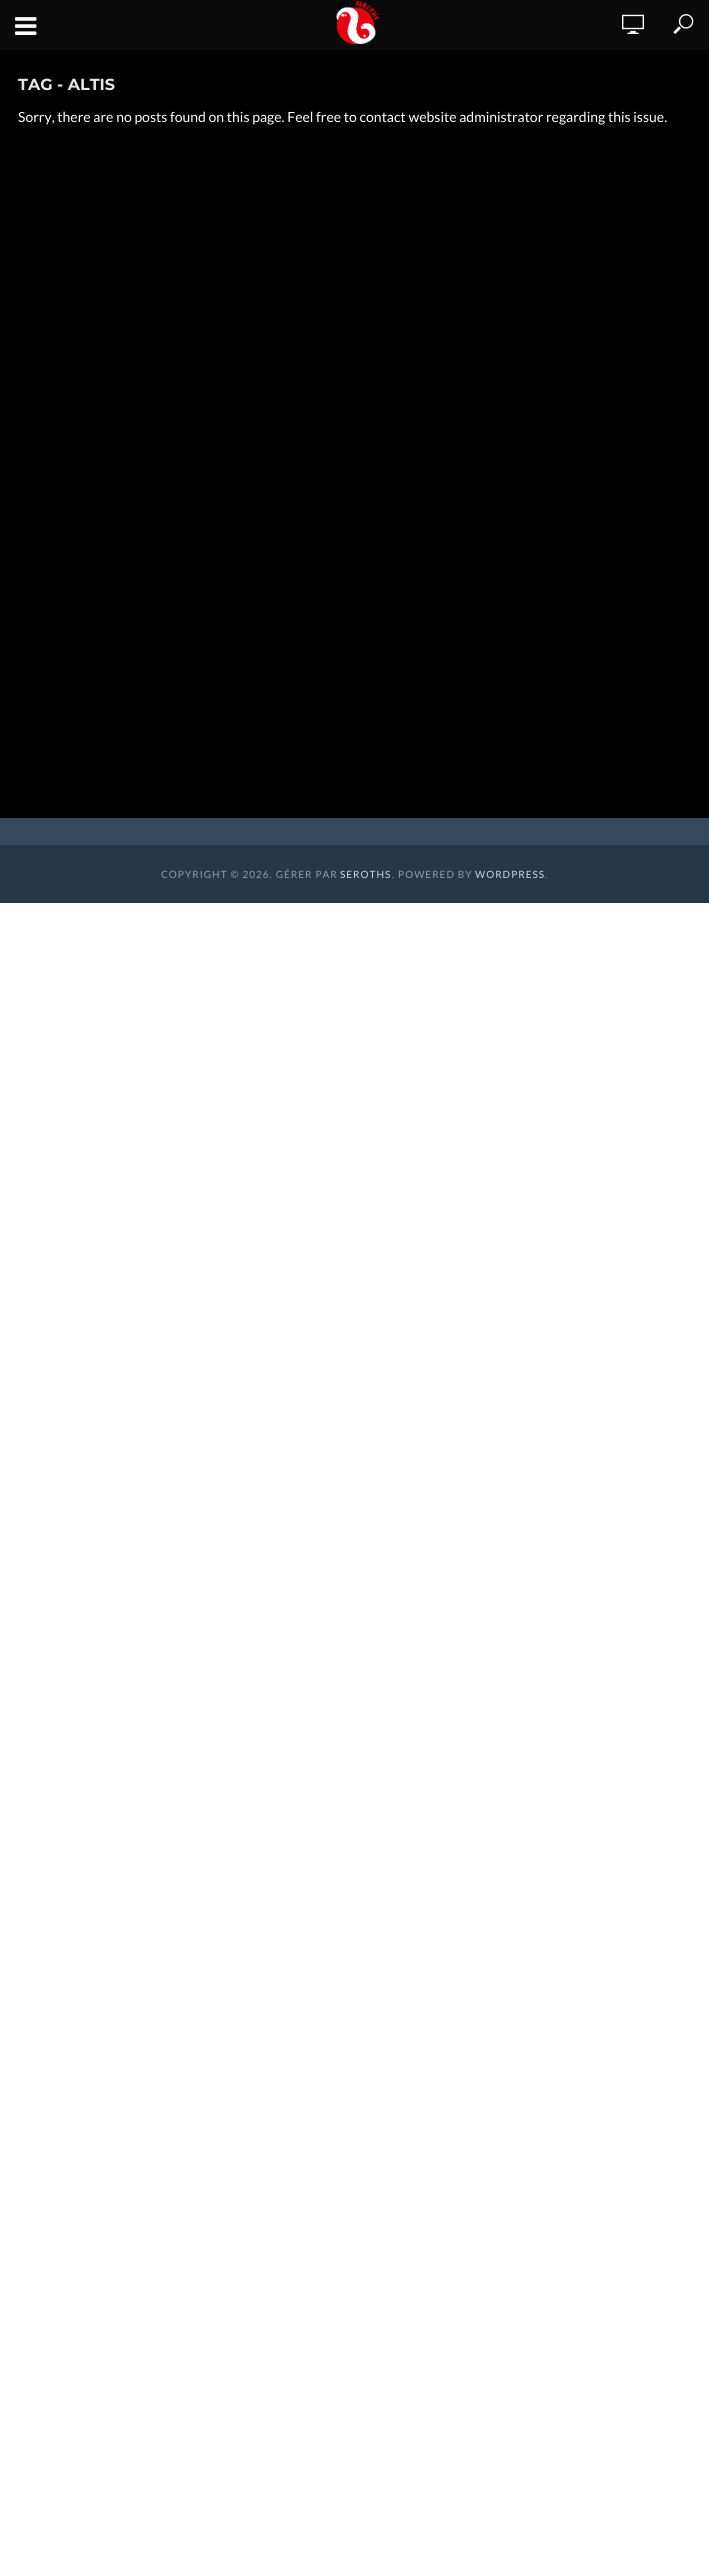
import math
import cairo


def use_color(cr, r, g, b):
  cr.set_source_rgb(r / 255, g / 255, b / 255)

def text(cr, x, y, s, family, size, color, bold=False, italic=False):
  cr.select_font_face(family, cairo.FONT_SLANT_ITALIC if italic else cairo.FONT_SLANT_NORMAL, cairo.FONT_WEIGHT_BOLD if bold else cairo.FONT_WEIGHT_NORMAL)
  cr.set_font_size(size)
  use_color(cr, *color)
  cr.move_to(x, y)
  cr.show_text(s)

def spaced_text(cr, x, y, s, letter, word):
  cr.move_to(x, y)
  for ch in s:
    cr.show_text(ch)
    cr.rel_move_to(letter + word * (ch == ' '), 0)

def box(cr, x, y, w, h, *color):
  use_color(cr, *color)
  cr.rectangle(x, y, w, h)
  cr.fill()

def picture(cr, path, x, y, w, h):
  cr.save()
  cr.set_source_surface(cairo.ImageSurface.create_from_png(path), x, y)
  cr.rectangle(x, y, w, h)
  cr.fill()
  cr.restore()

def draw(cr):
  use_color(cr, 255, 255, 255)
  cr.paint()
  box(cr, 0, 0, 709, 50, 10, 10, 10)
  picture(cr, "img_01.png", 15, 17, 22, 18)
  picture(cr, "img_02.png", 336, 0, 44, 45)
  picture(cr, "img_03.png", 622, 14, 22, 20)
  picture(cr, "img_04.png", 673, 14, 21, 20)
  box(cr, 0, 50, 709, 768, 0, 0, 0)
  box(cr, 0, 818, 709, 27, 52, 73, 94)
  box(cr, 0, 845, 709, 58, 39, 55, 71)
  text(cr, 18, 90, "TAG - ALTIS", "Montserrat", 16, (229, 229, 229), bold=True)
  text(cr, 18, 122, "Sorry, there are no posts found on this page. Feel free to contact website administrator regarding this issue.", "Lato", 14, (255, 255, 255))
  cr.set_font_size(10)
  use_color(cr, 147, 155, 163)
  spaced_text(cr, 161, 878, "COPYRIGHT © 2026. GÉRER PAR", 1, 0)
  use_color(cr, 212, 215, 218)
  spaced_text(cr, 340, 878, "SEROTHS", 1, 0)
  use_color(cr, 147, 155, 163)
  spaced_text(cr, 392, 878, ". POWERED BY", 1, 0)
  use_color(cr, 212, 215, 218)
  spaced_text(cr, 475, 878, "WORDPRESS", 1, 0)
  use_color(cr, 147, 155, 163)
  spaced_text(cr, 545, 878, ".", 1, 0)


surface = cairo.ImageSurface(cairo.FORMAT_RGB24, 709, 2561)
cr = cairo.Context(surface)
options = cairo.FontOptions()
options.set_hint_metrics(cairo.HINT_METRICS_OFF)
options.set_hint_style(cairo.HINT_STYLE_NONE)
cr.set_font_options(options)
cr.set_miter_limit(4)
draw(cr)
surface.write_to_png("out.png")
